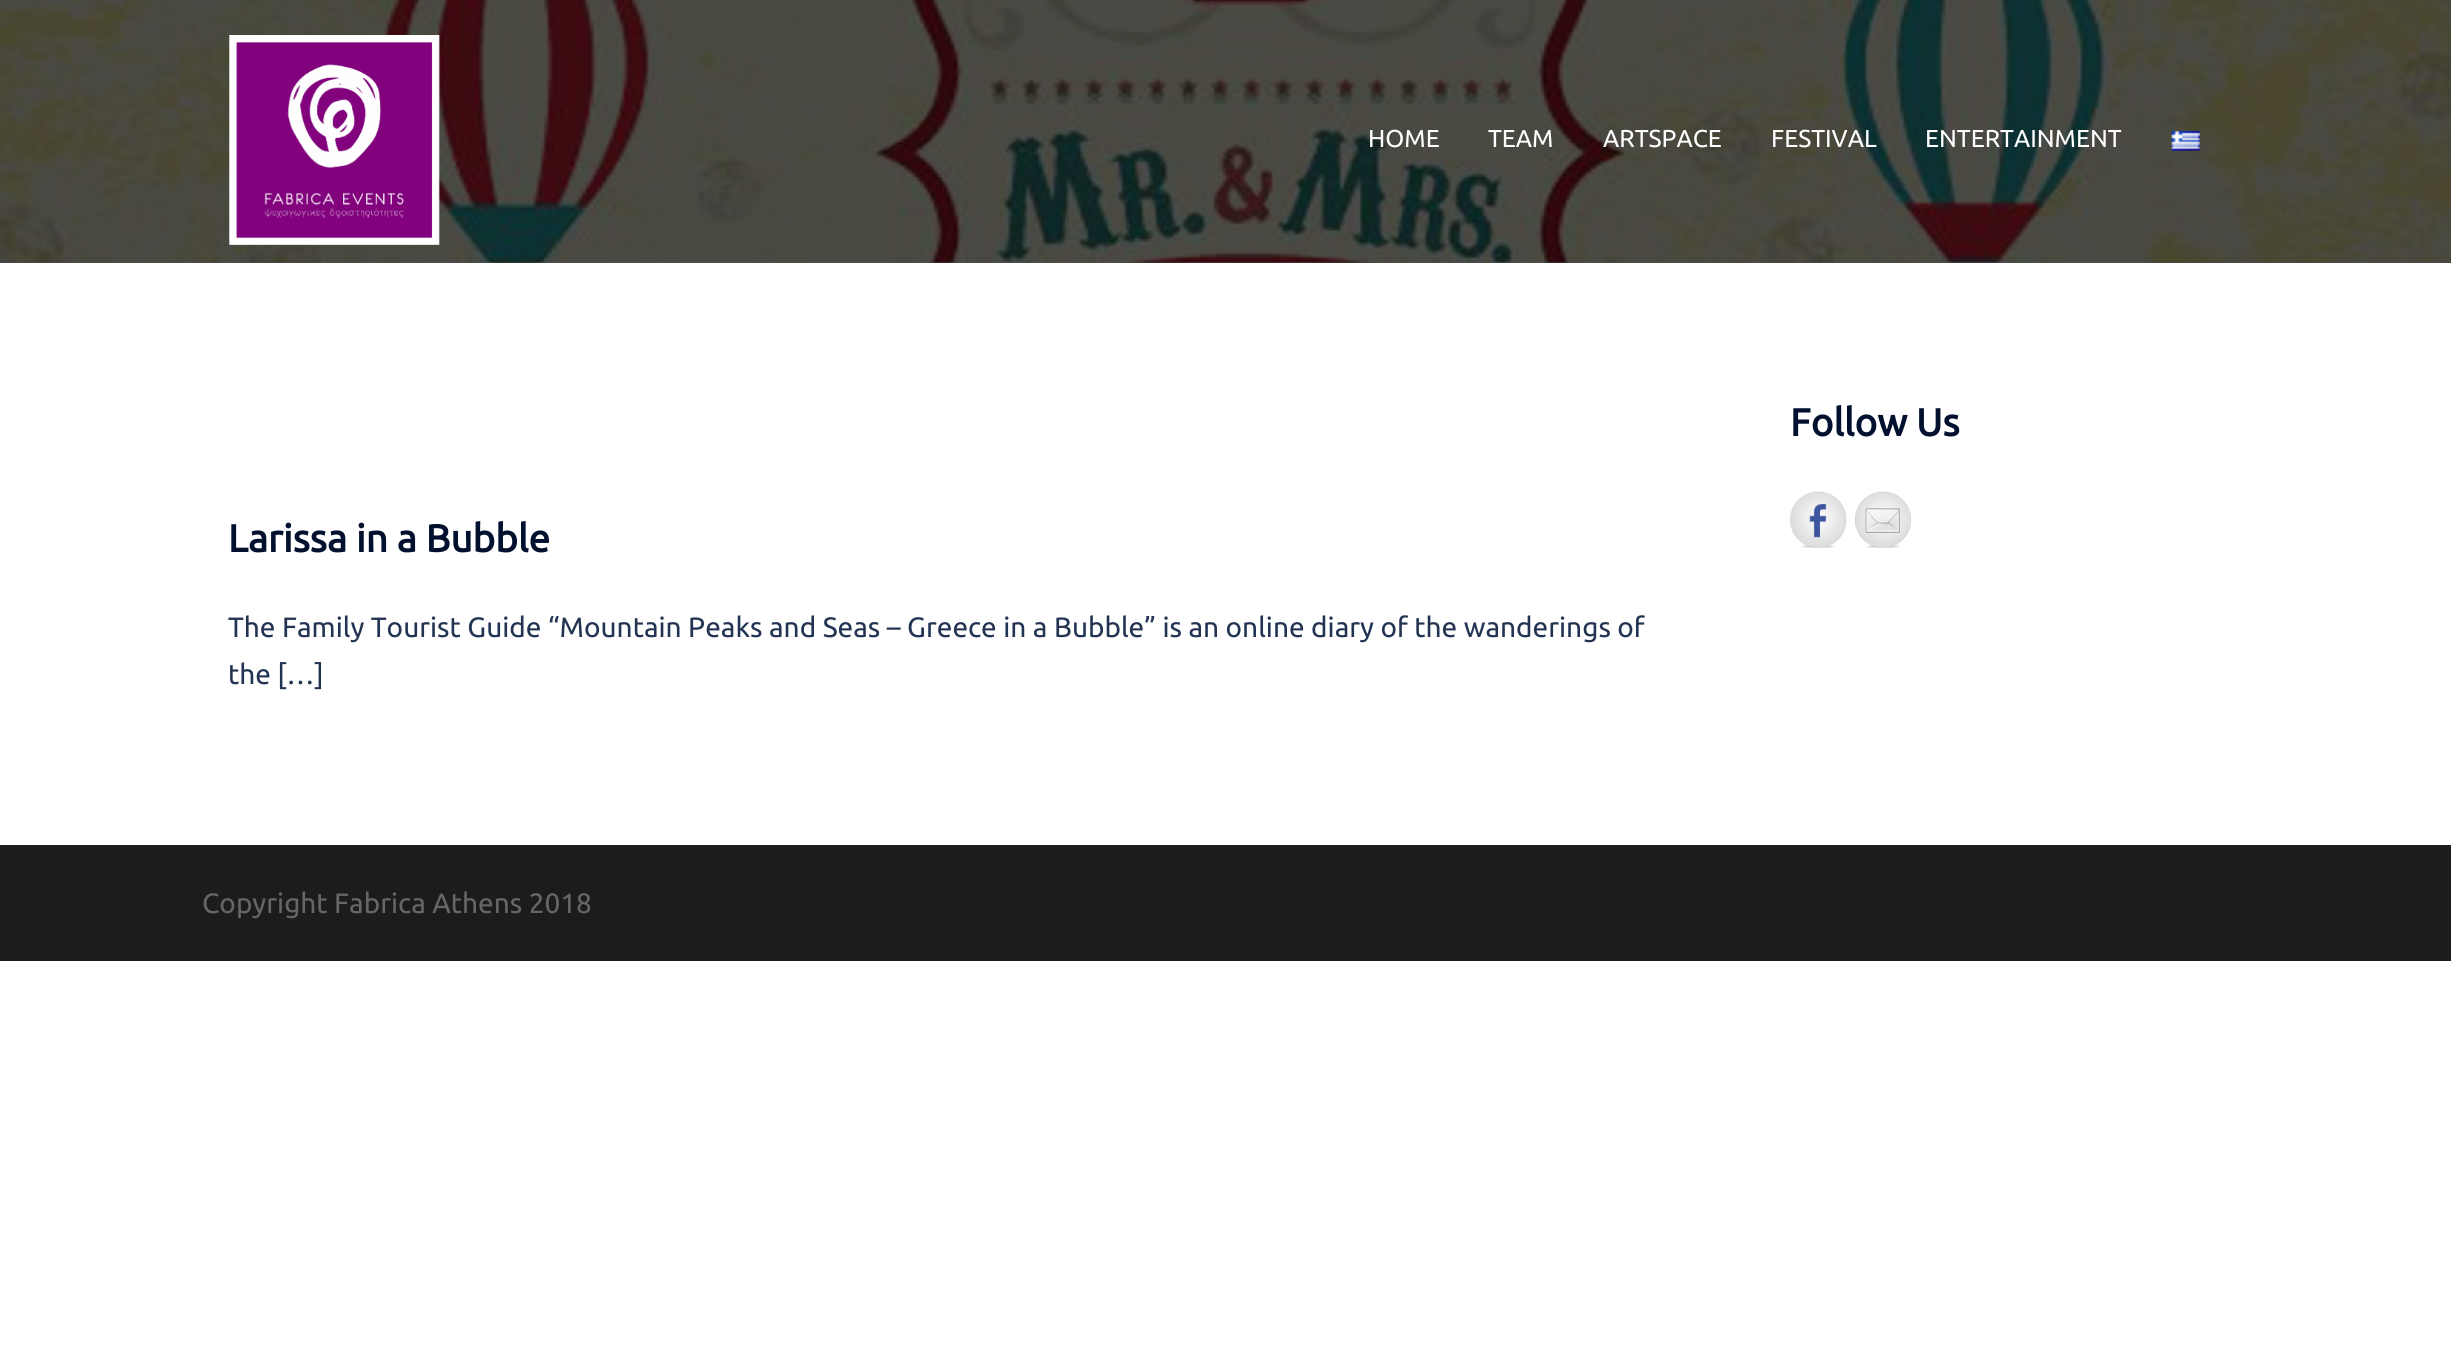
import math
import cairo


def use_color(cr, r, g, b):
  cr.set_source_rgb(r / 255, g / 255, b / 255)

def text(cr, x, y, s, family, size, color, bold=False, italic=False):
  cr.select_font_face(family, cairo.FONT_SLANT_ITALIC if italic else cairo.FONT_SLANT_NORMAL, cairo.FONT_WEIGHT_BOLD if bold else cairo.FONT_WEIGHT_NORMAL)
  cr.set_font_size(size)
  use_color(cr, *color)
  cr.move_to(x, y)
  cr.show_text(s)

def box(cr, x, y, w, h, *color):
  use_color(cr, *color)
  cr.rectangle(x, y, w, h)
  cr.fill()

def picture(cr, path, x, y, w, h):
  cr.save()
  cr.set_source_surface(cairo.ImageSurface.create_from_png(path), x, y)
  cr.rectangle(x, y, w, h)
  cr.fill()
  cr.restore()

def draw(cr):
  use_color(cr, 255, 255, 255)
  cr.paint()
  box(cr, 0, 262, 2451, 1, 77, 77, 77)
  picture(cr, "img_01.png", 0, 0, 2451, 263)
  picture(cr, "img_02.png", 229, 35, 211, 210)
  picture(cr, "img_03.png", 2171, 131, 29, 20)
  picture(cr, "img_04.png", 1790, 491, 57, 57)
  picture(cr, "img_05.png", 1855, 491, 56, 57)
  box(cr, 0, 845, 2451, 116, 28, 28, 28)
  text(cr, 1368, 147, "HOME", "Ubuntu", 24.5, (255, 255, 255))
  text(cr, 1488, 147, "TEAM", "Ubuntu", 24.5, (255, 255, 255))
  text(cr, 1603, 147, "ARTSPACE", "Ubuntu", 24.5, (255, 255, 255))
  text(cr, 1771, 147, "FESTIVAL", "Ubuntu", 24.5, (255, 255, 255))
  text(cr, 1925, 147, "ENTERTAINMENT", "Ubuntu", 24.5, (255, 255, 255))
  text(cr, 1790, 436, "Follow Us", "Ubuntu", 38.5, (0, 16, 46), bold=True)
  text(cr, 228, 552, "Larissa in a Bubble", "Ubuntu", 38.5, (0, 16, 46), bold=True)
  text(cr, 228, 637, "The Family Tourist Guide “Mountain Peaks and Seas – Greece in a Bubble” is an online diary of the wanderings of", "Ubuntu", 28, (35, 52, 82))
  text(cr, 228, 684, "the […]", "Ubuntu", 28, (35, 52, 82))
  text(cr, 202, 913, "Copyright Fabrica Athens 2018", "Ubuntu", 28, (102, 102, 102))


surface = cairo.ImageSurface(cairo.FORMAT_RGB24, 2451, 1367)
cr = cairo.Context(surface)
options = cairo.FontOptions()
options.set_hint_metrics(cairo.HINT_METRICS_OFF)
options.set_hint_style(cairo.HINT_STYLE_NONE)
cr.set_font_options(options)
cr.set_miter_limit(4)
draw(cr)
surface.write_to_png("out.png")
